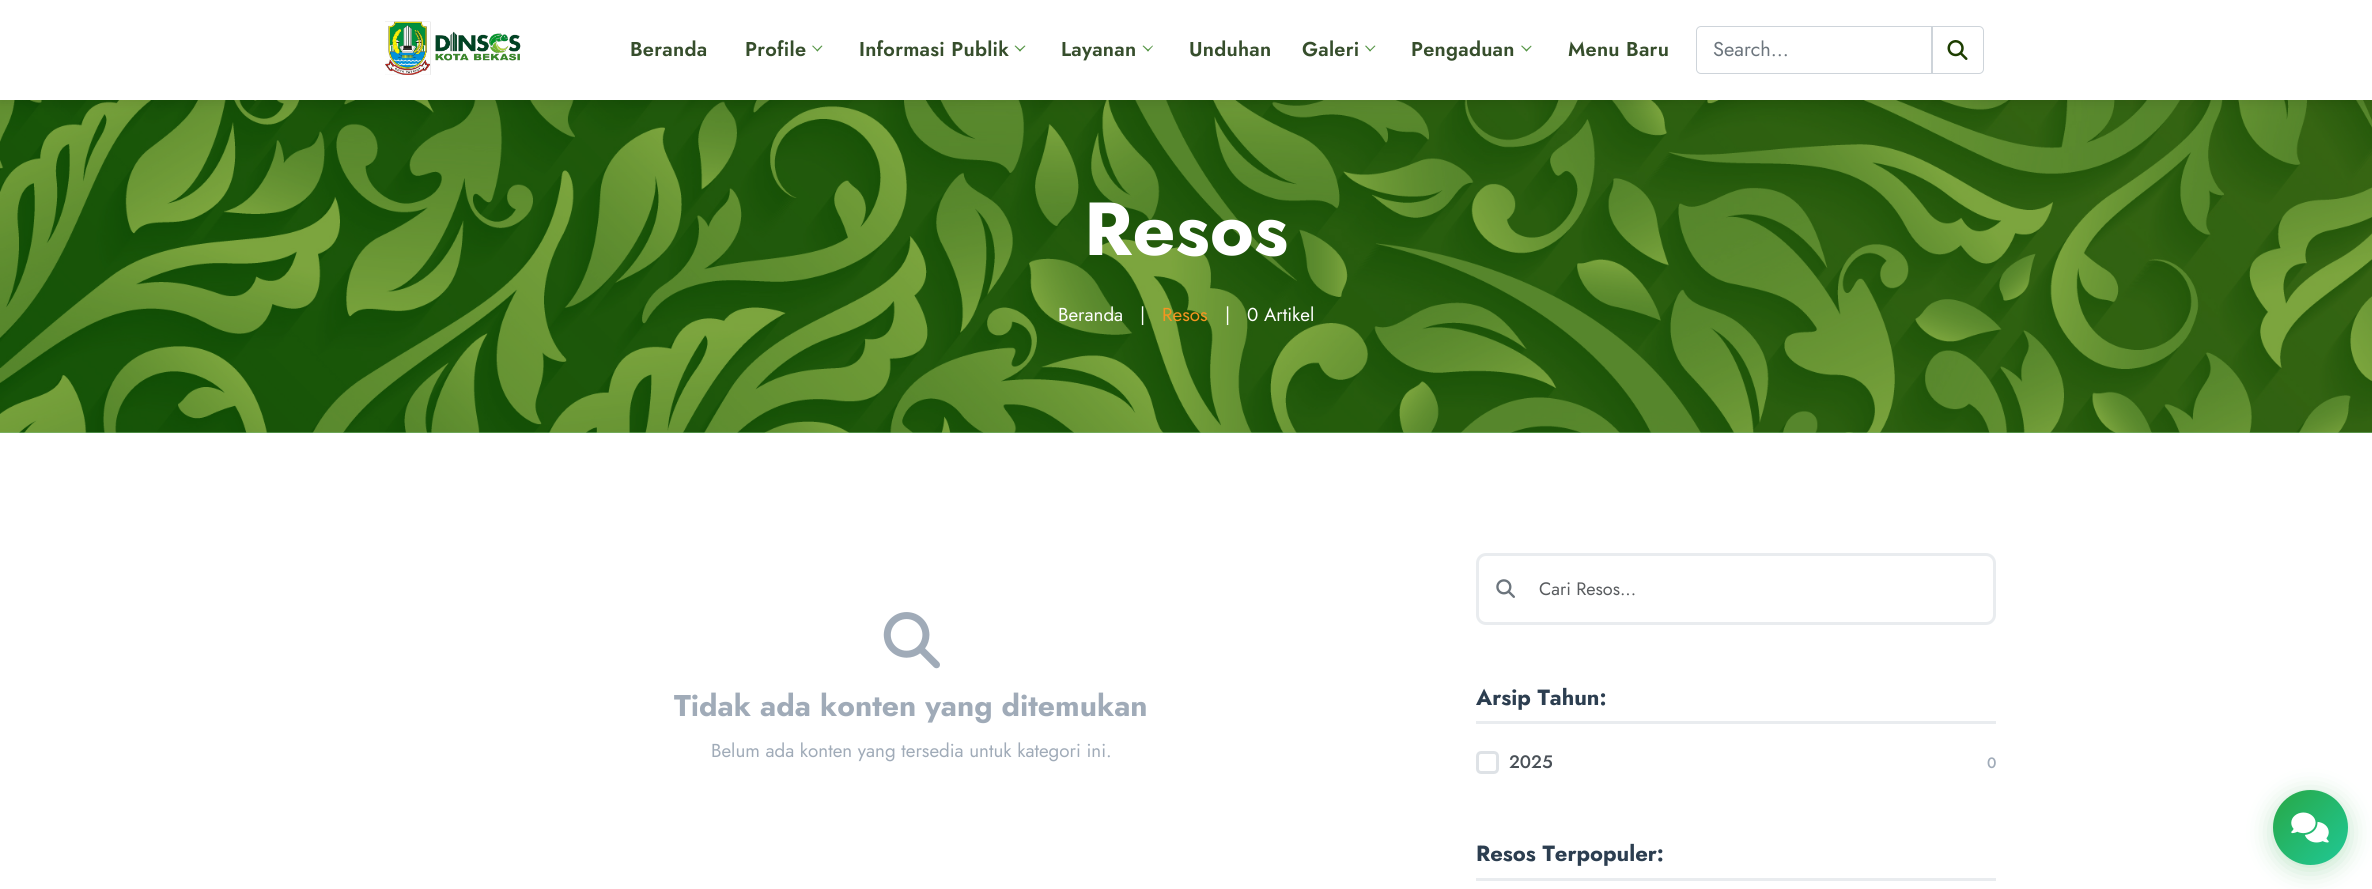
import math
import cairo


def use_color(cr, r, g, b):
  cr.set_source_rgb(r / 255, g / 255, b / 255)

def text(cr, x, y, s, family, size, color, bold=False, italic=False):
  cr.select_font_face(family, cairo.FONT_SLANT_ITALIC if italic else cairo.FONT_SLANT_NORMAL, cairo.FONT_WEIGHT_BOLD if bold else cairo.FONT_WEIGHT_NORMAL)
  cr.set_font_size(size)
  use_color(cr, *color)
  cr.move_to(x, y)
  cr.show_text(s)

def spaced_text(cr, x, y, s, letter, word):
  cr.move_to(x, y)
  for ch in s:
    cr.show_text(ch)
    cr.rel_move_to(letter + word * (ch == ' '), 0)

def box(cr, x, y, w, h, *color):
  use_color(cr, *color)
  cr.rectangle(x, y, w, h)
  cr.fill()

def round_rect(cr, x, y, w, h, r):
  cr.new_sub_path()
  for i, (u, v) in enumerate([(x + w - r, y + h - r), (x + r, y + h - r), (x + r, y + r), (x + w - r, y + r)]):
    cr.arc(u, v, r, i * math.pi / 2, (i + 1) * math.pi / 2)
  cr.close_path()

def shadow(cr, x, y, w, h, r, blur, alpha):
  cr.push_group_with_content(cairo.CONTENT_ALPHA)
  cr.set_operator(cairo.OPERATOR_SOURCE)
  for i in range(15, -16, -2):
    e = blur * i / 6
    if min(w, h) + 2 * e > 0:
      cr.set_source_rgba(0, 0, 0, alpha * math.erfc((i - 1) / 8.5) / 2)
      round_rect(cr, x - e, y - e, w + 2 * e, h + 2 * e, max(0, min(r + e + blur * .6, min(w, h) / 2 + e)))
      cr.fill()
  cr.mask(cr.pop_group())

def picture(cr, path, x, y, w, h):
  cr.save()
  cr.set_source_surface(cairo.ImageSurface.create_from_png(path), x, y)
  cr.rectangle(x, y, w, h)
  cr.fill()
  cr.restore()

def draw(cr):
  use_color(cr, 255, 255, 255)
  cr.paint()
  box(cr, 0, 432, 2372, 1, 128, 192, 128)
  picture(cr, "img_03.png", 0, 100, 2372, 333)
  use_color(cr, 0, 0, 0)
  shadow(cr, 0, 3, 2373, 100, 0, 6, 0.1)
  box(cr, 0, 0, 2372, 100, 255, 255, 255)
  picture(cr, "img_01.png", 385, 21, 136, 54)
  use_color(cr, 85, 149, 69)
  cr.new_path()
  cr.move_to(821.5, 45.5)
  cr.line_to(822.5, 46)
  cr.line_to(817.5, 51.5)
  cr.line_to(816.5, 50.5)
  cr.close_path()
  cr.fill()
  cr.new_path()
  cr.move_to(813, 45.5)
  cr.line_to(818, 50.5)
  cr.line_to(817.5, 51.5)
  cr.line_to(812, 46)
  cr.close_path()
  cr.fill()
  cr.new_path()
  cr.move_to(1024.5, 45.5)
  cr.line_to(1025.5, 46)
  cr.line_to(1020, 51.5)
  cr.line_to(1019, 50.5)
  cr.close_path()
  cr.fill()
  cr.new_path()
  cr.move_to(1015.5, 45.5)
  cr.line_to(1021, 50.5)
  cr.line_to(1020, 51.5)
  cr.line_to(1014.5, 46)
  cr.close_path()
  cr.fill()
  cr.new_path()
  cr.move_to(1152.5, 45.5)
  cr.line_to(1153, 46)
  cr.line_to(1148, 51.5)
  cr.line_to(1147, 50.5)
  cr.close_path()
  cr.fill()
  cr.new_path()
  cr.move_to(1143.5, 45.5)
  cr.line_to(1149, 50.5)
  cr.line_to(1148, 51.5)
  cr.line_to(1142.5, 46)
  cr.close_path()
  cr.fill()
  cr.new_path()
  cr.move_to(1374.5, 45.5)
  cr.line_to(1375.5, 46)
  cr.line_to(1370, 51.5)
  cr.line_to(1369.5, 50.5)
  cr.close_path()
  cr.fill()
  cr.new_path()
  cr.move_to(1366, 45.5)
  cr.line_to(1371, 50.5)
  cr.line_to(1370, 51.5)
  cr.line_to(1365, 46)
  cr.close_path()
  cr.fill()
  cr.new_path()
  cr.move_to(1531, 45.5)
  cr.line_to(1531.5, 46.5)
  cr.line_to(1526.5, 51.5)
  cr.line_to(1525.5, 50.5)
  cr.close_path()
  cr.fill()
  cr.new_path()
  cr.move_to(1522, 45.5)
  cr.line_to(1527.5, 50.5)
  cr.line_to(1526.5, 51.5)
  cr.line_to(1521, 46)
  cr.close_path()
  cr.fill()
  cr.new_path()
  cr.move_to(1701, 26.5)
  cr.line_to(1932.5, 26.5)
  cr.line_to(1932.5, 73.5)
  cr.line_to(1701, 73.5)
  cr.curve_to(1698.5, 73.5, 1696.5, 71.5, 1696.5, 69)
  cr.line_to(1696.5, 31)
  cr.curve_to(1696.5, 28.5, 1698.5, 26.5, 1701, 26.5)
  cr.close_path()
  use_color(cr, 206, 212, 218)
  cr.set_line_width(1)
  cr.stroke()
  cr.new_path()
  cr.move_to(1931.5, 26.5)
  cr.line_to(1979, 26.5)
  cr.curve_to(1981.5, 26.5, 1983.5, 28.5, 1983.5, 31)
  cr.line_to(1983.5, 69)
  cr.curve_to(1983.5, 71.5, 1981.5, 73.5, 1979, 73.5)
  cr.line_to(1931.5, 73.5)
  cr.close_path()
  cr.stroke()
  picture(cr, "img_02.png", 1947, 40, 21, 20)
  picture(cr, "img_04.png", 883, 612, 57, 57)
  round_rect(cr, 1477.5, 554.5, 517, 69, 8.5)
  use_color(cr, 233, 236, 239)
  cr.set_line_width(3)
  cr.stroke()
  picture(cr, "img_05.png", 1496, 579, 19, 19)
  box(cr, 1476, 721, 520, 3, 233, 236, 239)
  round_rect(cr, 1477.5, 752.5, 20, 20, 3.5)
  use_color(cr, 222, 226, 230)
  cr.stroke()
  box(cr, 1476, 878, 520, 3, 233, 236, 239)
  use_color(cr, 40, 167, 69)
  shadow(cr, 2273, 795, 75, 75, 37.5, 12.5, 0.3)
  gradient = cairo.LinearGradient(2273, 790, 2348, 865)
  gradient.add_color_stop_rgba(0, 0.157, 0.655, 0.271, 1)
  gradient.add_color_stop_rgba(1, 0.125, 0.788, 0.592, 1)
  cr.set_source(gradient)
  cr.arc(2310.5, 827.5, 37.5, 0, 2 * math.pi)
  cr.fill()
  picture(cr, "img_06.png", 2291, 812, 38, 31)
  cr.select_font_face("Jost SemiBold")
  cr.set_font_size(20)
  use_color(cr, 54, 78, 44)
  spaced_text(cr, 630, 56, "Beranda", 0.25, 0)
  spaced_text(cr, 745, 56, "Profile", 0.25, 0)
  spaced_text(cr, 859, 56, "Informasi Publik", 0.25, 0)
  spaced_text(cr, 1061, 56, "Layanan", 0.25, 0)
  spaced_text(cr, 1189, 56, "Unduhan", 0.25, 0)
  spaced_text(cr, 1302, 56, "Galeri", 0.25, 0)
  spaced_text(cr, 1411, 56, "Pengaduan", 0.25, 0)
  spaced_text(cr, 1568, 56, "Menu Baru", 0.25, 0)
  text(cr, 1713, 56, "Search...", "Jost", 20, (108, 117, 125))
  text(cr, 1084, 255, "Resos", "Jost", 75, (255, 255, 255), bold=True)
  text(cr, 1058, 321, "Beranda", "Jost", 18.75, (255, 255, 255))
  text(cr, 1140, 321, "|", "Jost", 18.75, (255, 255, 255))
  text(cr, 1162, 321, "Resos", "Jost", 18.75, (246, 149, 32))
  text(cr, 1225, 321, "|", "Jost", 18.75, (255, 255, 255))
  text(cr, 1247, 321, "0 Artikel", "Jost", 18.75, (255, 255, 255))
  text(cr, 674, 716, "Tidak ada konten yang ditemukan", "Jost", 30, (160, 171, 184), bold=True)
  text(cr, 711, 757, "Belum ada konten yang tersedia untuk kategori ini.", "Jost", 18.75, (160, 171, 184))
  text(cr, 1539, 595, "Cari Resos...", "Jost", 18, (89, 92, 95))
  text(cr, 1476, 705, "Arsip Tahun:", "Jost", 22, (44, 62, 80), bold=True)
  text(cr, 1509, 768, "2025", "Jost Medium", 18, (73, 80, 87))
  text(cr, 1987, 768, "0", "Jost Medium", 15, (160, 171, 184))
  text(cr, 1476, 861, "Resos Terpopuler:", "Jost", 22, (44, 62, 80), bold=True)


surface = cairo.ImageSurface(cairo.FORMAT_RGB24, 2372, 889)
cr = cairo.Context(surface)
options = cairo.FontOptions()
options.set_hint_metrics(cairo.HINT_METRICS_OFF)
options.set_hint_style(cairo.HINT_STYLE_NONE)
cr.set_font_options(options)
cr.set_miter_limit(4)
draw(cr)
surface.write_to_png("out.png")
